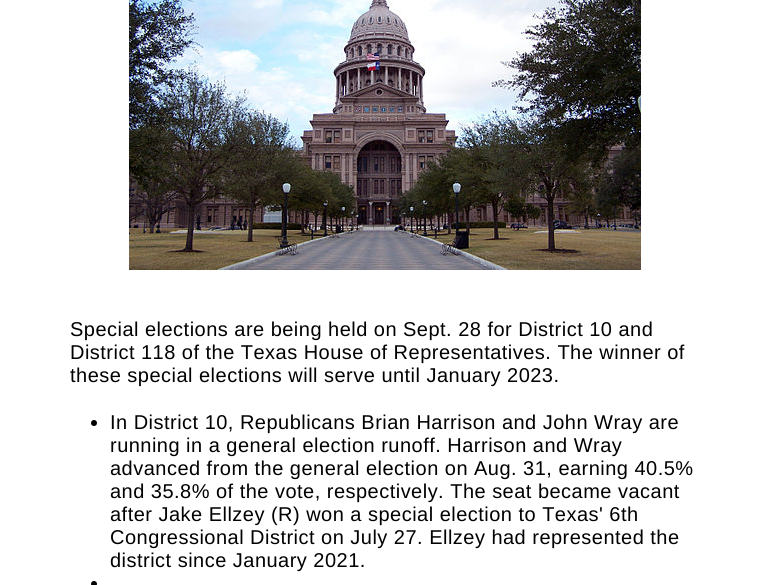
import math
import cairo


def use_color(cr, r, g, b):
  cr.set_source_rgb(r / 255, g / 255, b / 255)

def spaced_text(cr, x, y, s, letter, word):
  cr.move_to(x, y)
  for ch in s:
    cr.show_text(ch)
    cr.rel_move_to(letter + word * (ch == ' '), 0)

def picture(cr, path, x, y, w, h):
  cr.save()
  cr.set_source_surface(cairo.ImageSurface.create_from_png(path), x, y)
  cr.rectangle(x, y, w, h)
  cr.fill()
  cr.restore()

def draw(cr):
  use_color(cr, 255, 255, 255)
  cr.paint()
  picture(cr, "img_01.png", 129, 0, 512, 270)
  use_color(cr, 0, 0, 0)
  cr.arc(94, 423, 3, 0, 2 * math.pi)
  cr.fill()
  cr.arc(94, 584, 3, 0, 2 * math.pi)
  cr.fill()
  cr.select_font_face("Liberation Sans")
  cr.set_font_size(20)
  spaced_text(cr, 70, 336, "Special elections are being held on Sept. 28 for District 10 and", 0.48, 0)
  spaced_text(cr, 70, 359, "District 118 of the Texas House of Representatives. The winner of", 0.48, 0)
  spaced_text(cr, 70, 382, "these special elections will serve until January 2023.", 0.48, 0)
  spaced_text(cr, 110, 429, "In District 10, Republicans Brian Harrison and John Wray are", 0.48, 0)
  spaced_text(cr, 110, 452, "running in a general election runoff. Harrison and Wray", 0.48, 0)
  spaced_text(cr, 110, 475, "advanced from the general election on Aug. 31, earning 40.5%", 0.48, 0)
  spaced_text(cr, 110, 498, "and 35.8% of the vote, respectively. The seat became vacant", 0.48, 0)
  spaced_text(cr, 110, 521, "after Jake Ellzey (R) won a special election to Texas' 6th", 0.48, 0)
  spaced_text(cr, 110, 544, "Congressional District on July 27. Ellzey had represented the", 0.48, 0)
  spaced_text(cr, 110, 567, "district since January 2021.", 0.48, 0)


surface = cairo.ImageSurface(cairo.FORMAT_RGB24, 770, 585)
cr = cairo.Context(surface)
options = cairo.FontOptions()
options.set_hint_metrics(cairo.HINT_METRICS_OFF)
options.set_hint_style(cairo.HINT_STYLE_NONE)
cr.set_font_options(options)
cr.set_miter_limit(4)
draw(cr)
surface.write_to_png("out.png")
